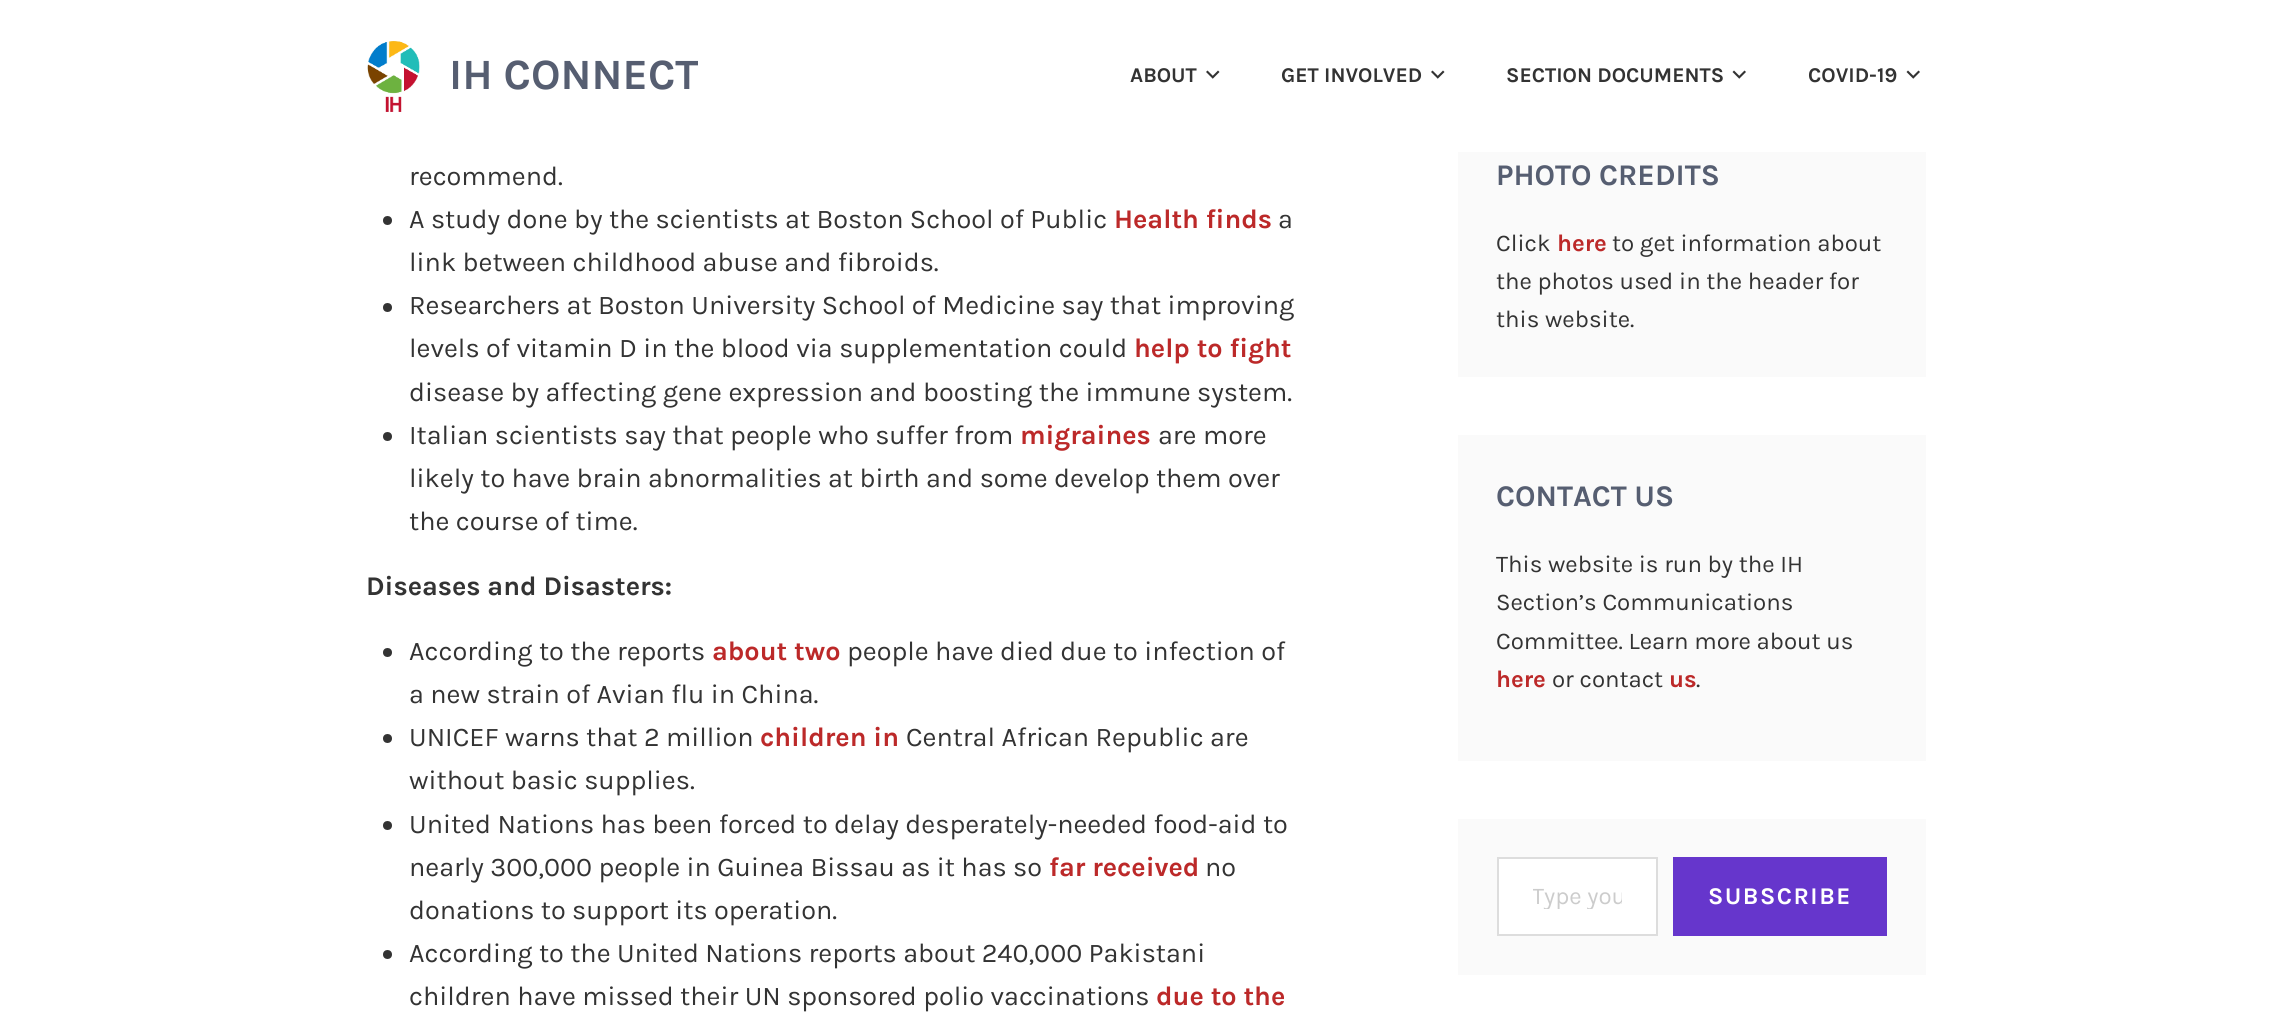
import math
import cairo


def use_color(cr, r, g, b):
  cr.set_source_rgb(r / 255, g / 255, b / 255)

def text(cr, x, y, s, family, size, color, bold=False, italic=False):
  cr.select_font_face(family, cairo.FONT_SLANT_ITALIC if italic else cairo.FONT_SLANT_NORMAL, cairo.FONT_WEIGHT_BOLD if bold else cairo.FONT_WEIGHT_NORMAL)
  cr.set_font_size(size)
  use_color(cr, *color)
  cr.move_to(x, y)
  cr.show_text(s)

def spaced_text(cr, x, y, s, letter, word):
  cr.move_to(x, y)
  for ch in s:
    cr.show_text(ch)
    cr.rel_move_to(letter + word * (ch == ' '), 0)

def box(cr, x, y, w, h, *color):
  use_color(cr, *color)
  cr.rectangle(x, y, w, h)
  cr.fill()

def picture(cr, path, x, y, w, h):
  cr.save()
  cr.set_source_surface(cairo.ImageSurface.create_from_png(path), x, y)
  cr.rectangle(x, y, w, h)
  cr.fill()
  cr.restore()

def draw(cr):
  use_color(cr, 255, 255, 255)
  cr.paint()
  picture(cr, "img_01.png", 367, 41, 53, 71)
  picture(cr, "img_02.png", 1206, 70, 14, 9)
  picture(cr, "img_02.png", 1431, 70, 14, 9)
  picture(cr, "img_03.png", 1732, 70, 14, 9)
  picture(cr, "img_03.png", 1906, 70, 14, 9)
  use_color(cr, 51, 51, 51)
  cr.arc(387.5, 220.5, 4.5, 0, 2 * math.pi)
  cr.fill()
  cr.arc(387.5, 307.5, 4.5, 0, 2 * math.pi)
  cr.fill()
  cr.arc(387.5, 436.5, 4.5, 0, 2 * math.pi)
  cr.fill()
  cr.arc(387.5, 652.5, 4.5, 0, 2 * math.pi)
  cr.fill()
  cr.arc(387.5, 738.5, 4.5, 0, 2 * math.pi)
  cr.fill()
  cr.arc(387.5, 825.5, 4.5, 0, 2 * math.pi)
  cr.fill()
  cr.arc(387.5, 954.5, 4.5, 0, 2 * math.pi)
  cr.fill()
  box(cr, 1458, 152, 468, 225, 250, 250, 250)
  box(cr, 1458, 435, 468, 326, 250, 250, 250)
  box(cr, 1458, 819, 468, 156, 250, 250, 250)
  use_color(cr, 255, 255, 255)
  cr.rectangle(1498, 858, 159, 77)
  cr.fill_preserve()
  use_color(cr, 221, 221, 221)
  cr.stroke()
  box(cr, 1673, 857, 214, 79, 102, 54, 204)
  text(cr, 449, 89, "IH CONNECT", "Karla", 43.25, (86, 94, 113), bold=True)
  text(cr, 1130, 82, "ABOUT", "Karla", 21, (51, 51, 51), bold=True)
  text(cr, 1281, 82, "GET INVOLVED", "Karla", 21, (51, 51, 51), bold=True)
  text(cr, 1506, 82, "SECTION DOCUMENTS", "Karla", 21, (51, 51, 51), bold=True)
  text(cr, 1808, 82, "COVID-19", "Karla", 21, (51, 51, 51), bold=True)
  text(cr, 409, 185, "recommend.", "Karla", 27, (51, 51, 51))
  text(cr, 409, 228, "A study done by the scientists at Boston School of Public", "Karla", 27, (51, 51, 51))
  text(cr, 1114, 228, "Health finds", "Karla", 27, (188, 41, 41), bold=True)
  text(cr, 1278, 228, "a", "Karla", 27, (51, 51, 51))
  text(cr, 409, 271, "link between childhood abuse and fibroids.", "Karla", 27, (51, 51, 51))
  text(cr, 409, 314, "Researchers at Boston University School of Medicine say that improving", "Karla", 27, (51, 51, 51))
  text(cr, 409, 357, "levels of vitamin D in the blood via supplementation could", "Karla", 27, (51, 51, 51))
  text(cr, 1134, 357, "help to fight", "Karla", 27, (188, 41, 41), bold=True)
  text(cr, 409, 401, "disease by affecting gene expression and boosting the immune system.", "Karla", 27, (51, 51, 51))
  text(cr, 409, 444, "Italian scientists say that people who suffer from", "Karla", 27, (51, 51, 51))
  text(cr, 1020, 444, "migraines", "Karla", 27, (188, 41, 41), bold=True)
  text(cr, 1158, 444, "are more", "Karla", 27, (51, 51, 51))
  text(cr, 409, 487, "likely to have brain abnormalities at birth and some develop them over", "Karla", 27, (51, 51, 51))
  text(cr, 409, 530, "the course of time.", "Karla", 27, (51, 51, 51))
  text(cr, 366, 595, "Diseases and Disasters:", "Karla", 27, (51, 51, 51), bold=True)
  text(cr, 409, 660, "According to the reports", "Karla", 27, (51, 51, 51))
  text(cr, 712, 660, "about two", "Karla", 27, (188, 41, 41), bold=True)
  text(cr, 847, 660, "people have died due to infection of", "Karla", 27, (51, 51, 51))
  text(cr, 409, 703, "a new strain of Avian flu in China.", "Karla", 27, (51, 51, 51))
  text(cr, 409, 746, "UNICEF warns that 2 million", "Karla", 27, (51, 51, 51))
  text(cr, 760, 746, "children in", "Karla", 27, (188, 41, 41), bold=True)
  text(cr, 906, 746, "Central African Republic are", "Karla", 27, (51, 51, 51))
  text(cr, 409, 789, "without basic supplies.", "Karla", 27, (51, 51, 51))
  text(cr, 409, 833, "United Nations has been forced to delay desperately-needed food-aid to", "Karla", 27, (51, 51, 51))
  text(cr, 409, 876, "nearly 300,000 people in Guinea Bissau as it has so", "Karla", 27, (51, 51, 51))
  text(cr, 1049, 876, "far received", "Karla", 27, (188, 41, 41), bold=True)
  text(cr, 1205, 876, "no", "Karla", 27, (51, 51, 51))
  text(cr, 409, 919, "donations to support its operation.", "Karla", 27, (51, 51, 51))
  text(cr, 409, 962, "According to the United Nations reports about 240,000 Pakistani", "Karla", 27, (51, 51, 51))
  text(cr, 409, 1005, "children have missed their UN sponsored polio vaccinations", "Karla", 27, (51, 51, 51))
  text(cr, 1156, 1005, "due to the", "Karla", 27, (188, 41, 41), bold=True)
  text(cr, 1496, 185, "PHOTO CREDITS", "Karla", 30, (86, 94, 113), bold=True)
  text(cr, 1496, 251, "Click", "Karla", 24, (51, 51, 51))
  text(cr, 1557, 251, "here", "Karla", 24, (188, 41, 41), bold=True)
  text(cr, 1612, 251, "to get information about", "Karla", 24, (51, 51, 51))
  text(cr, 1496, 289, "the photos used in the header for", "Karla", 24, (51, 51, 51))
  text(cr, 1496, 327, "this website.", "Karla", 24, (51, 51, 51))
  text(cr, 1496, 506, "CONTACT US", "Karla", 30, (86, 94, 113), bold=True)
  text(cr, 1496, 572, "This website is run by the IH", "Karla", 24, (51, 51, 51))
  text(cr, 1496, 610, "Section’s Communications", "Karla", 24, (51, 51, 51))
  text(cr, 1496, 649, "Committee. Learn more about us", "Karla", 24, (51, 51, 51))
  text(cr, 1496, 687, "here", "Karla", 24, (188, 41, 41), bold=True)
  text(cr, 1552, 687, "or contact", "Karla", 24, (51, 51, 51))
  text(cr, 1669, 687, "us", "Karla", 24, (188, 41, 41), bold=True)
  text(cr, 1696, 687, ".", "Karla", 24, (51, 51, 51))
  cr.save()
  cr.rectangle(1533, 881, 89, 28)
  cr.clip()
  text(cr, 1532, 904, "Type you", "Karla", 24, (204, 204, 204))
  cr.restore()
  cr.select_font_face("Karla", cairo.FONT_SLANT_NORMAL, cairo.FONT_WEIGHT_BOLD)
  use_color(cr, 255, 255, 255)
  spaced_text(cr, 1708, 904, "SUBSCRIBE", 1.5, 0)


surface = cairo.ImageSurface(cairo.FORMAT_RGB24, 2292, 1013)
cr = cairo.Context(surface)
options = cairo.FontOptions()
options.set_hint_metrics(cairo.HINT_METRICS_OFF)
options.set_hint_style(cairo.HINT_STYLE_NONE)
cr.set_font_options(options)
cr.set_miter_limit(4)
draw(cr)
surface.write_to_png("out.png")
